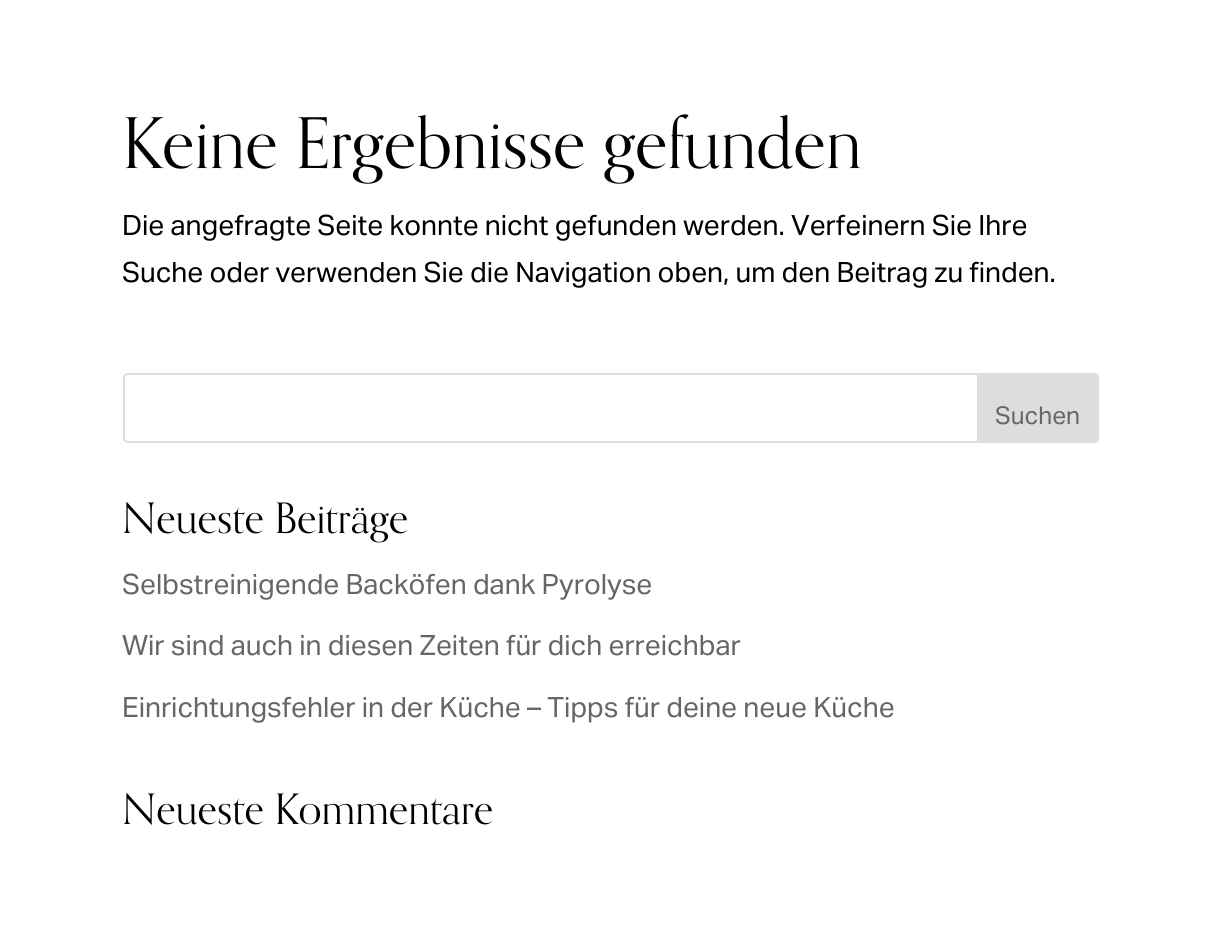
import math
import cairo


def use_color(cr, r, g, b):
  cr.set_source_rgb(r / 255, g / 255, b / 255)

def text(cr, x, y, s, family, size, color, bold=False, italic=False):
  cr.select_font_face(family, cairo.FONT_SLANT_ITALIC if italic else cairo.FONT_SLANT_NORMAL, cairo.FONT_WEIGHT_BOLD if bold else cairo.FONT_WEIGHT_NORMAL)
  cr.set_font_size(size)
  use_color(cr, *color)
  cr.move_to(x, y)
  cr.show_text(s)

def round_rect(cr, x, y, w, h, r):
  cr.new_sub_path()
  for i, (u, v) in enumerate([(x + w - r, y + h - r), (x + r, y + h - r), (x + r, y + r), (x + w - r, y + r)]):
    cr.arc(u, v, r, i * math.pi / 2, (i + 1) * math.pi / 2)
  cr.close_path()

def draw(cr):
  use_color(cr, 255, 255, 255)
  cr.paint()
  round_rect(cr, 124, 374, 974, 68, 4)
  use_color(cr, 221, 221, 221)
  cr.stroke()
  cr.new_path()
  cr.move_to(978, 374)
  cr.line_to(1094, 374)
  cr.curve_to(1096, 374, 1098, 376, 1098, 378)
  cr.line_to(1098, 438)
  cr.curve_to(1098, 440, 1096, 442, 1094, 442)
  cr.line_to(978, 442)
  cr.close_path()
  cr.fill_preserve()
  cr.stroke()
  text(cr, 122, 168, "Keine Ergebnisse gefunden", "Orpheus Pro", 70, (0, 0, 0))
  text(cr, 122, 235, "Die angefragte Seite konnte nicht gefunden werden. Verfeinern Sie Ihre", "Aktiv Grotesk", 28, (0, 0, 0))
  text(cr, 122, 282, "Suche oder verwenden Sie die Navigation oben, um den Beitrag zu finden.", "Aktiv Grotesk", 28, (0, 0, 0))
  text(cr, 995, 424, "Suchen", "Aktiv Grotesk", 24.5, (102, 102, 102))
  text(cr, 122, 533, "Neueste Beiträge", "Orpheus Pro", 42, (0, 0, 0))
  text(cr, 122, 594, "Selbstreinigende Backöfen dank Pyrolyse", "Aktiv Grotesk", 28, (102, 102, 102))
  text(cr, 122, 655, "Wir sind auch in diesen Zeiten für dich erreichbar", "Aktiv Grotesk", 28, (102, 102, 102))
  text(cr, 122, 717, "Einrichtungsfehler in der Küche – Tipps für deine neue Küche", "Aktiv Grotesk", 28, (102, 102, 102))
  text(cr, 122, 824, "Neueste Kommentare", "Orpheus Pro", 42, (0, 0, 0))


surface = cairo.ImageSurface(cairo.FORMAT_RGB24, 1221, 951)
cr = cairo.Context(surface)
options = cairo.FontOptions()
options.set_hint_metrics(cairo.HINT_METRICS_OFF)
options.set_hint_style(cairo.HINT_STYLE_NONE)
cr.set_font_options(options)
cr.set_miter_limit(4)
draw(cr)
surface.write_to_png("out.png")
